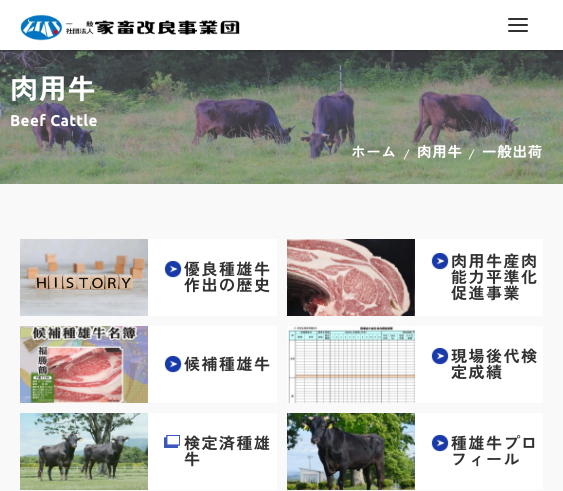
import math
import cairo


def use_color(cr, r, g, b):
  cr.set_source_rgb(r / 255, g / 255, b / 255)

def spaced_text(cr, x, y, s, letter, word):
  cr.move_to(x, y)
  for ch in s:
    cr.show_text(ch)
    cr.rel_move_to(letter + word * (ch == ' '), 0)

def box(cr, x, y, w, h, *color):
  use_color(cr, *color)
  cr.rectangle(x, y, w, h)
  cr.fill()

def round_rect(cr, x, y, w, h, r):
  cr.new_sub_path()
  for i, (u, v) in enumerate([(x + w - r, y + h - r), (x + r, y + h - r), (x + r, y + r), (x + w - r, y + r)]):
    cr.arc(u, v, r, i * math.pi / 2, (i + 1) * math.pi / 2)
  cr.close_path()

def shadow(cr, x, y, w, h, r, blur, alpha):
  cr.push_group_with_content(cairo.CONTENT_ALPHA)
  cr.set_operator(cairo.OPERATOR_SOURCE)
  for i in range(15, -16, -2):
    e = blur * i / 6
    if min(w, h) + 2 * e > 0:
      cr.set_source_rgba(0, 0, 0, alpha * math.erfc((i - 1) / 8.5) / 2)
      round_rect(cr, x - e, y - e, w + 2 * e, h + 2 * e, max(0, min(r + e + blur * .6, min(w, h) / 2 + e)))
      cr.fill()
  cr.mask(cr.pop_group())

def picture(cr, path, x, y, w, h):
  cr.save()
  cr.set_source_surface(cairo.ImageSurface.create_from_png(path), x, y)
  cr.rectangle(x, y, w, h)
  cr.fill()
  cr.restore()

def draw(cr):
  use_color(cr, 249, 249, 249)
  cr.paint()
  picture(cr, "img_02.png", 0, 50, 563, 134)
  use_color(cr, 0, 0, 0)
  shadow(cr, 0, 1, 563, 50, 0, 1.5, 0.3)
  box(cr, 0, 0, 563, 50, 255, 255, 255)
  picture(cr, "img_01.png", 20, 14, 220, 27)
  use_color(cr, 49, 49, 49)
  round_rect(cr, 508, 18, 20, 2, 1)
  cr.fill()
  round_rect(cr, 508, 24, 20, 2, 1)
  cr.fill()
  round_rect(cr, 508, 30, 20, 2, 1)
  cr.fill()
  picture(cr, "img_03.png", 20, 239, 128, 77)
  box(cr, 148, 239, 129, 77, 255, 255, 255)
  picture(cr, "img_04.png", 164, 260, 18, 18)
  picture(cr, "img_05.png", 287, 239, 128, 77)
  box(cr, 415, 239, 128, 77, 255, 255, 255)
  picture(cr, "img_04.png", 431, 252, 18, 18)
  picture(cr, "img_06.png", 20, 326, 128, 77)
  box(cr, 148, 326, 129, 77, 255, 255, 255)
  picture(cr, "img_04.png", 164, 355, 18, 18)
  picture(cr, "img_07.png", 287, 326, 128, 77)
  box(cr, 415, 326, 128, 77, 255, 255, 255)
  picture(cr, "img_04.png", 431, 347, 18, 18)
  picture(cr, "img_08.png", 20, 413, 128, 77)
  box(cr, 148, 413, 129, 77, 255, 255, 255)
  picture(cr, "img_09.png", 164, 435, 16, 13)
  picture(cr, "img_10.png", 287, 413, 128, 77)
  box(cr, 415, 413, 128, 77, 255, 255, 255)
  picture(cr, "img_04.png", 431, 434, 18, 18)
  cr.select_font_face("Zen Kaku Gothic Antique", cairo.FONT_SLANT_NORMAL, cairo.FONT_WEIGHT_BOLD)
  cr.set_font_size(28)
  spaced_text(cr, 10, 99, "肉用牛", 0.75, 0)
  cr.select_font_face("Ubuntu", cairo.FONT_SLANT_NORMAL, cairo.FONT_WEIGHT_BOLD)
  cr.set_font_size(15)
  spaced_text(cr, 10, 126, "Beef Cattle", 0.75, 0)
  cr.select_font_face("Zen Kaku Gothic Antique", cairo.FONT_SLANT_NORMAL, cairo.FONT_WEIGHT_BOLD)
  cr.set_font_size(14.5)
  spaced_text(cr, 351, 157, "ホーム", 0.75, 0)
  cr.set_font_size(13)
  spaced_text(cr, 403, 159, "/", 0.75, 0)
  cr.set_font_size(14.5)
  spaced_text(cr, 417, 157, "肉用牛", 0.75, 0)
  cr.set_font_size(13)
  spaced_text(cr, 468, 159, "/", 0.75, 0)
  cr.set_font_size(14.5)
  spaced_text(cr, 482, 157, "一般出荷", 0.75, 0)
  cr.set_font_size(16)
  use_color(cr, 49, 49, 49)
  spaced_text(cr, 184, 275, "優良種雄牛", 1.5, 0)
  spaced_text(cr, 184, 291, "作出の歴史", 1.5, 0)
  spaced_text(cr, 451, 267, "肉用牛産肉", 1.5, 0)
  spaced_text(cr, 451, 283, "能力平準化", 1.5, 0)
  spaced_text(cr, 451, 299, "促進事業", 1.5, 0)
  spaced_text(cr, 184, 370, "候補種雄牛", 1.5, 0)
  spaced_text(cr, 451, 362, "現場後代検", 1.5, 0)
  spaced_text(cr, 451, 378, "定成績", 1.5, 0)
  spaced_text(cr, 184, 449, "検定済種雄", 1.5, 0)
  spaced_text(cr, 184, 465, "牛", 1.5, 0)
  spaced_text(cr, 451, 449, "種雄牛プロ", 1.5, 0)
  spaced_text(cr, 451, 465, "フィール", 1.5, 0)


surface = cairo.ImageSurface(cairo.FORMAT_RGB24, 563, 491)
cr = cairo.Context(surface)
options = cairo.FontOptions()
options.set_hint_metrics(cairo.HINT_METRICS_OFF)
options.set_hint_style(cairo.HINT_STYLE_NONE)
cr.set_font_options(options)
cr.set_miter_limit(4)
draw(cr)
surface.write_to_png("out.png")
